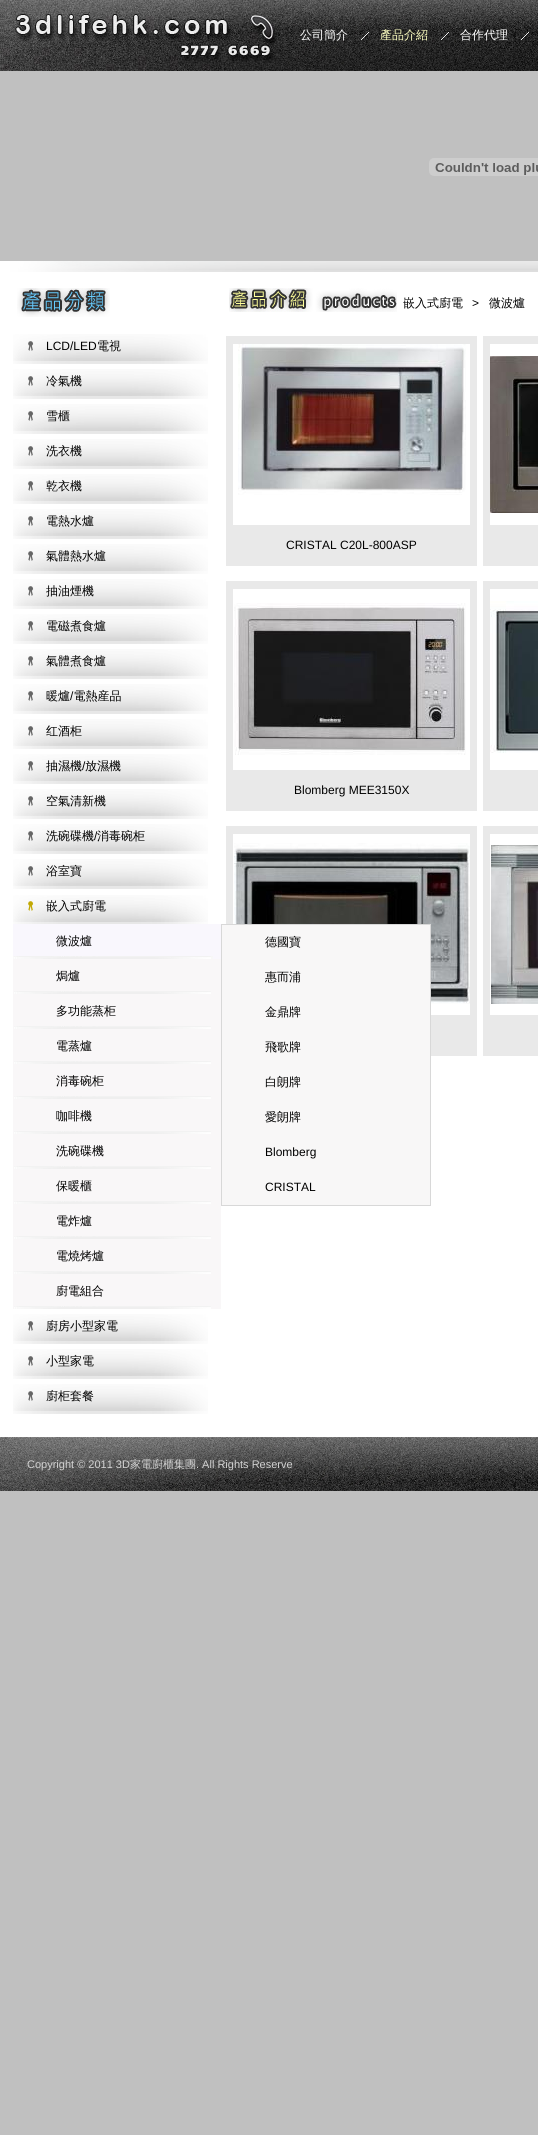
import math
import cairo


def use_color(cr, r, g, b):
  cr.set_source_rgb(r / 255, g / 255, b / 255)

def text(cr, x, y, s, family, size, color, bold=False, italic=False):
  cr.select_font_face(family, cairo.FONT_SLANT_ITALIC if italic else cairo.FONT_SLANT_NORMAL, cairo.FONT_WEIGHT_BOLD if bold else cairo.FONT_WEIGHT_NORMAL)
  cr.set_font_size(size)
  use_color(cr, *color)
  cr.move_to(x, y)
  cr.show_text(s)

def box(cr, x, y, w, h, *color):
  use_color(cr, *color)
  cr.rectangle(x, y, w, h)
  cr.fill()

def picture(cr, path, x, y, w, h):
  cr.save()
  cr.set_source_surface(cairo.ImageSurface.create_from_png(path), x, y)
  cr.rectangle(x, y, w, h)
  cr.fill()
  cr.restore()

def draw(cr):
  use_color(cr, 192, 192, 192)
  cr.paint()
  picture(cr, "img_01.png", 0, 0, 538, 71)
  picture(cr, "img_02.png", 2, 0, 281, 70)
  picture(cr, "img_03.png", 361, 32, 8, 8)
  picture(cr, "img_04.png", 441, 32, 8, 8)
  picture(cr, "img_05.png", 521, 32, 8, 8)
  picture(cr, "img_06.png", 0, 261, 538, 11)
  picture(cr, "img_07.png", 429, 158, 109, 18)
  box(cr, 0, 272, 538, 1165, 255, 255, 255)
  picture(cr, "img_08.png", 17, 288, 93, 29)
  picture(cr, "img_09.png", 13, 334, 195, 30)
  picture(cr, "img_09.png", 13, 369, 195, 30)
  picture(cr, "img_09.png", 13, 404, 195, 30)
  picture(cr, "img_09.png", 13, 439, 195, 30)
  picture(cr, "img_09.png", 13, 474, 195, 30)
  picture(cr, "img_09.png", 13, 509, 195, 30)
  picture(cr, "img_09.png", 13, 544, 195, 30)
  picture(cr, "img_09.png", 13, 579, 195, 30)
  picture(cr, "img_09.png", 13, 614, 195, 30)
  picture(cr, "img_09.png", 13, 649, 195, 30)
  picture(cr, "img_09.png", 13, 684, 195, 30)
  picture(cr, "img_09.png", 13, 719, 195, 30)
  picture(cr, "img_09.png", 13, 754, 195, 30)
  picture(cr, "img_09.png", 13, 789, 195, 30)
  picture(cr, "img_09.png", 13, 824, 195, 30)
  picture(cr, "img_09.png", 13, 859, 195, 30)
  picture(cr, "img_10.png", 13, 895, 195, 29)
  box(cr, 13, 924, 208, 35, 249, 247, 253)
  picture(cr, "img_11.png", 13, 956, 200, 3)
  box(cr, 226, 826, 251, 230, 233, 233, 233)
  box(cr, 233, 834, 237, 181, 255, 255, 255)
  picture(cr, "img_18.png", 234, 843, 236, 161)
  use_color(cr, 248, 247, 247)
  cr.rectangle(221.5, 924.5, 209, 281)
  cr.fill_preserve()
  use_color(cr, 216, 216, 216)
  cr.set_line_width(1)
  cr.stroke()
  box(cr, 13, 959, 208, 350, 249, 247, 248)
  picture(cr, "img_12.png", 14, 991, 197, 3)
  picture(cr, "img_12.png", 14, 1026, 197, 3)
  picture(cr, "img_12.png", 14, 1061, 197, 3)
  picture(cr, "img_12.png", 14, 1096, 197, 3)
  picture(cr, "img_12.png", 14, 1131, 197, 3)
  picture(cr, "img_12.png", 14, 1166, 197, 3)
  picture(cr, "img_12.png", 14, 1201, 197, 3)
  picture(cr, "img_12.png", 14, 1236, 197, 3)
  picture(cr, "img_12.png", 14, 1271, 197, 3)
  picture(cr, "img_12.png", 14, 1306, 197, 3)
  picture(cr, "img_09.png", 13, 1314, 195, 30)
  picture(cr, "img_09.png", 13, 1349, 195, 30)
  picture(cr, "img_09.png", 13, 1384, 195, 30)
  picture(cr, "img_13.png", 229, 288, 168, 24)
  box(cr, 226, 336, 251, 230, 233, 233, 233)
  box(cr, 233, 344, 237, 181, 255, 255, 255)
  picture(cr, "img_14.png", 238, 344, 228, 151)
  box(cr, 483, 336, 55, 230, 233, 233, 233)
  box(cr, 490, 344, 48, 181, 255, 255, 255)
  picture(cr, "img_15.png", 490, 356, 48, 157)
  box(cr, 226, 581, 251, 230, 233, 233, 233)
  box(cr, 233, 589, 237, 181, 255, 255, 255)
  picture(cr, "img_16.png", 234, 603, 232, 152)
  box(cr, 483, 581, 55, 230, 233, 233, 233)
  box(cr, 490, 589, 48, 181, 255, 255, 255)
  picture(cr, "img_17.png", 490, 601, 48, 152)
  box(cr, 483, 826, 55, 230, 233, 233, 233)
  box(cr, 490, 834, 48, 181, 255, 255, 255)
  picture(cr, "img_19.png", 491, 845, 47, 159)
  picture(cr, "img_20.png", 0, 1437, 538, 54)
  text(cr, 300, 39, "公司簡介", "WenQuanYi Zen Hei Medium", 12, (255, 255, 255))
  text(cr, 380, 39, "產品介紹", "WenQuanYi Zen Hei Medium", 12, (254, 255, 193))
  text(cr, 460, 39, "合作代理", "WenQuanYi Zen Hei Medium", 12, (255, 255, 255))
  text(cr, 46, 350, "LCD/LED", "Liberation Sans", 12, (0, 0, 0))
  text(cr, 97, 350, "電視", "WenQuanYi Zen Hei Medium", 12, (0, 0, 0))
  text(cr, 46, 385, "冷氣機", "WenQuanYi Zen Hei Medium", 12, (0, 0, 0))
  text(cr, 46, 420, "雪櫃", "WenQuanYi Zen Hei Medium", 12, (0, 0, 0))
  text(cr, 46, 455, "洗衣機", "WenQuanYi Zen Hei Medium", 12, (0, 0, 0))
  text(cr, 46, 490, "乾衣機", "WenQuanYi Zen Hei Medium", 12, (0, 0, 0))
  text(cr, 46, 525, "電熱水爐", "WenQuanYi Zen Hei Medium", 12, (0, 0, 0))
  text(cr, 46, 560, "氣體熱水爐", "WenQuanYi Zen Hei Medium", 12, (0, 0, 0))
  text(cr, 46, 595, "抽油煙機", "WenQuanYi Zen Hei Medium", 12, (0, 0, 0))
  text(cr, 46, 630, "電磁煮食爐", "WenQuanYi Zen Hei Medium", 12, (0, 0, 0))
  text(cr, 46, 665, "氣體煮食爐", "WenQuanYi Zen Hei Medium", 12, (0, 0, 0))
  text(cr, 46, 700, "暖爐 電熱産品", "WenQuanYi Zen Hei Medium", 12, (0, 0, 0))
  text(cr, 70, 700, "/", "Liberation Sans", 12, (0, 0, 0))
  text(cr, 46, 735, "红酒柜", "WenQuanYi Zen Hei Medium", 12, (0, 0, 0))
  text(cr, 46, 770, "抽濕機", "WenQuanYi Zen Hei Medium", 12, (0, 0, 0))
  text(cr, 82, 770, "/", "Liberation Sans", 12, (0, 0, 0))
  text(cr, 85, 770, "放濕機", "WenQuanYi Zen Hei Medium", 12, (0, 0, 0))
  text(cr, 46, 805, "空氣清新機", "WenQuanYi Zen Hei Medium", 12, (0, 0, 0))
  text(cr, 46, 840, "洗碗碟機", "WenQuanYi Zen Hei Medium", 12, (0, 0, 0))
  text(cr, 94, 840, "/", "Liberation Sans", 12, (0, 0, 0))
  text(cr, 97, 840, "消毒碗柜", "WenQuanYi Zen Hei Medium", 12, (0, 0, 0))
  text(cr, 46, 875, "浴室寶", "WenQuanYi Zen Hei Medium", 12, (0, 0, 0))
  text(cr, 46, 910, "嵌入式廚電", "WenQuanYi Zen Hei Medium", 12, (0, 0, 0))
  text(cr, 56, 945, "微波爐", "WenQuanYi Zen Hei Medium", 12, (0, 0, 0))
  text(cr, 265, 946, "德國寶", "WenQuanYi Zen Hei Medium", 12, (0, 0, 0))
  text(cr, 265, 981, "惠而浦", "WenQuanYi Zen Hei Medium", 12, (0, 0, 0))
  text(cr, 265, 1016, "金鼎牌", "WenQuanYi Zen Hei Medium", 12, (0, 0, 0))
  text(cr, 265, 1051, "飛歌牌", "WenQuanYi Zen Hei Medium", 12, (0, 0, 0))
  text(cr, 265, 1086, "白朗牌", "WenQuanYi Zen Hei Medium", 12, (0, 0, 0))
  text(cr, 265, 1121, "愛朗牌", "WenQuanYi Zen Hei Medium", 12, (0, 0, 0))
  text(cr, 265, 1156, "Blomberg", "Liberation Sans", 12, (0, 0, 0))
  text(cr, 265, 1191, "CRISTAL", "Liberation Sans", 12, (0, 0, 0))
  text(cr, 56, 980, "焗爐", "WenQuanYi Zen Hei Medium", 12, (0, 0, 0))
  text(cr, 56, 1015, "多功能蒸柜", "WenQuanYi Zen Hei Medium", 12, (0, 0, 0))
  text(cr, 56, 1050, "電蒸爐", "WenQuanYi Zen Hei Medium", 12, (0, 0, 0))
  text(cr, 56, 1085, "消毒碗柜", "WenQuanYi Zen Hei Medium", 12, (0, 0, 0))
  text(cr, 56, 1120, "咖啡機", "WenQuanYi Zen Hei Medium", 12, (0, 0, 0))
  text(cr, 56, 1155, "洗碗碟機", "WenQuanYi Zen Hei Medium", 12, (0, 0, 0))
  text(cr, 56, 1190, "保暖櫃", "WenQuanYi Zen Hei Medium", 12, (0, 0, 0))
  text(cr, 56, 1225, "電炸爐", "WenQuanYi Zen Hei Medium", 12, (0, 0, 0))
  text(cr, 56, 1260, "電燒烤爐", "WenQuanYi Zen Hei Medium", 12, (0, 0, 0))
  text(cr, 56, 1295, "廚電組合", "WenQuanYi Zen Hei Medium", 12, (0, 0, 0))
  text(cr, 46, 1330, "廚房小型家電", "WenQuanYi Zen Hei Medium", 12, (0, 0, 0))
  text(cr, 46, 1365, "小型家電", "WenQuanYi Zen Hei Medium", 12, (0, 0, 0))
  text(cr, 46, 1400, "廚柜套餐", "WenQuanYi Zen Hei Medium", 12, (0, 0, 0))
  text(cr, 403, 307, "嵌入式廚電", "WenQuanYi Zen Hei Medium", 12, (0, 0, 0))
  text(cr, 472, 307, ">", "Liberation Sans", 12, (0, 0, 0))
  text(cr, 489, 307, "微波爐", "WenQuanYi Zen Hei Medium", 12, (0, 0, 0))
  text(cr, 286, 549, "CRISTAL C20L-800ASP", "Liberation Sans", 12, (0, 0, 0))
  text(cr, 294, 794, "Blomberg MEE3150X", "Liberation Sans", 12, (0, 0, 0))
  text(cr, 27, 1468, "Copyright © 2011 3D", "Liberation Sans", 11, (210, 210, 210))
  text(cr, 130, 1468, "家電廚櫃集團", "WenQuanYi Zen Hei Medium", 11, (210, 210, 210))
  text(cr, 196, 1468, ". All Rights Reserve", "Liberation Sans", 11, (210, 210, 210))


surface = cairo.ImageSurface(cairo.FORMAT_RGB24, 538, 2135)
cr = cairo.Context(surface)
options = cairo.FontOptions()
options.set_hint_metrics(cairo.HINT_METRICS_OFF)
options.set_hint_style(cairo.HINT_STYLE_NONE)
cr.set_font_options(options)
cr.set_miter_limit(4)
draw(cr)
surface.write_to_png("out.png")
